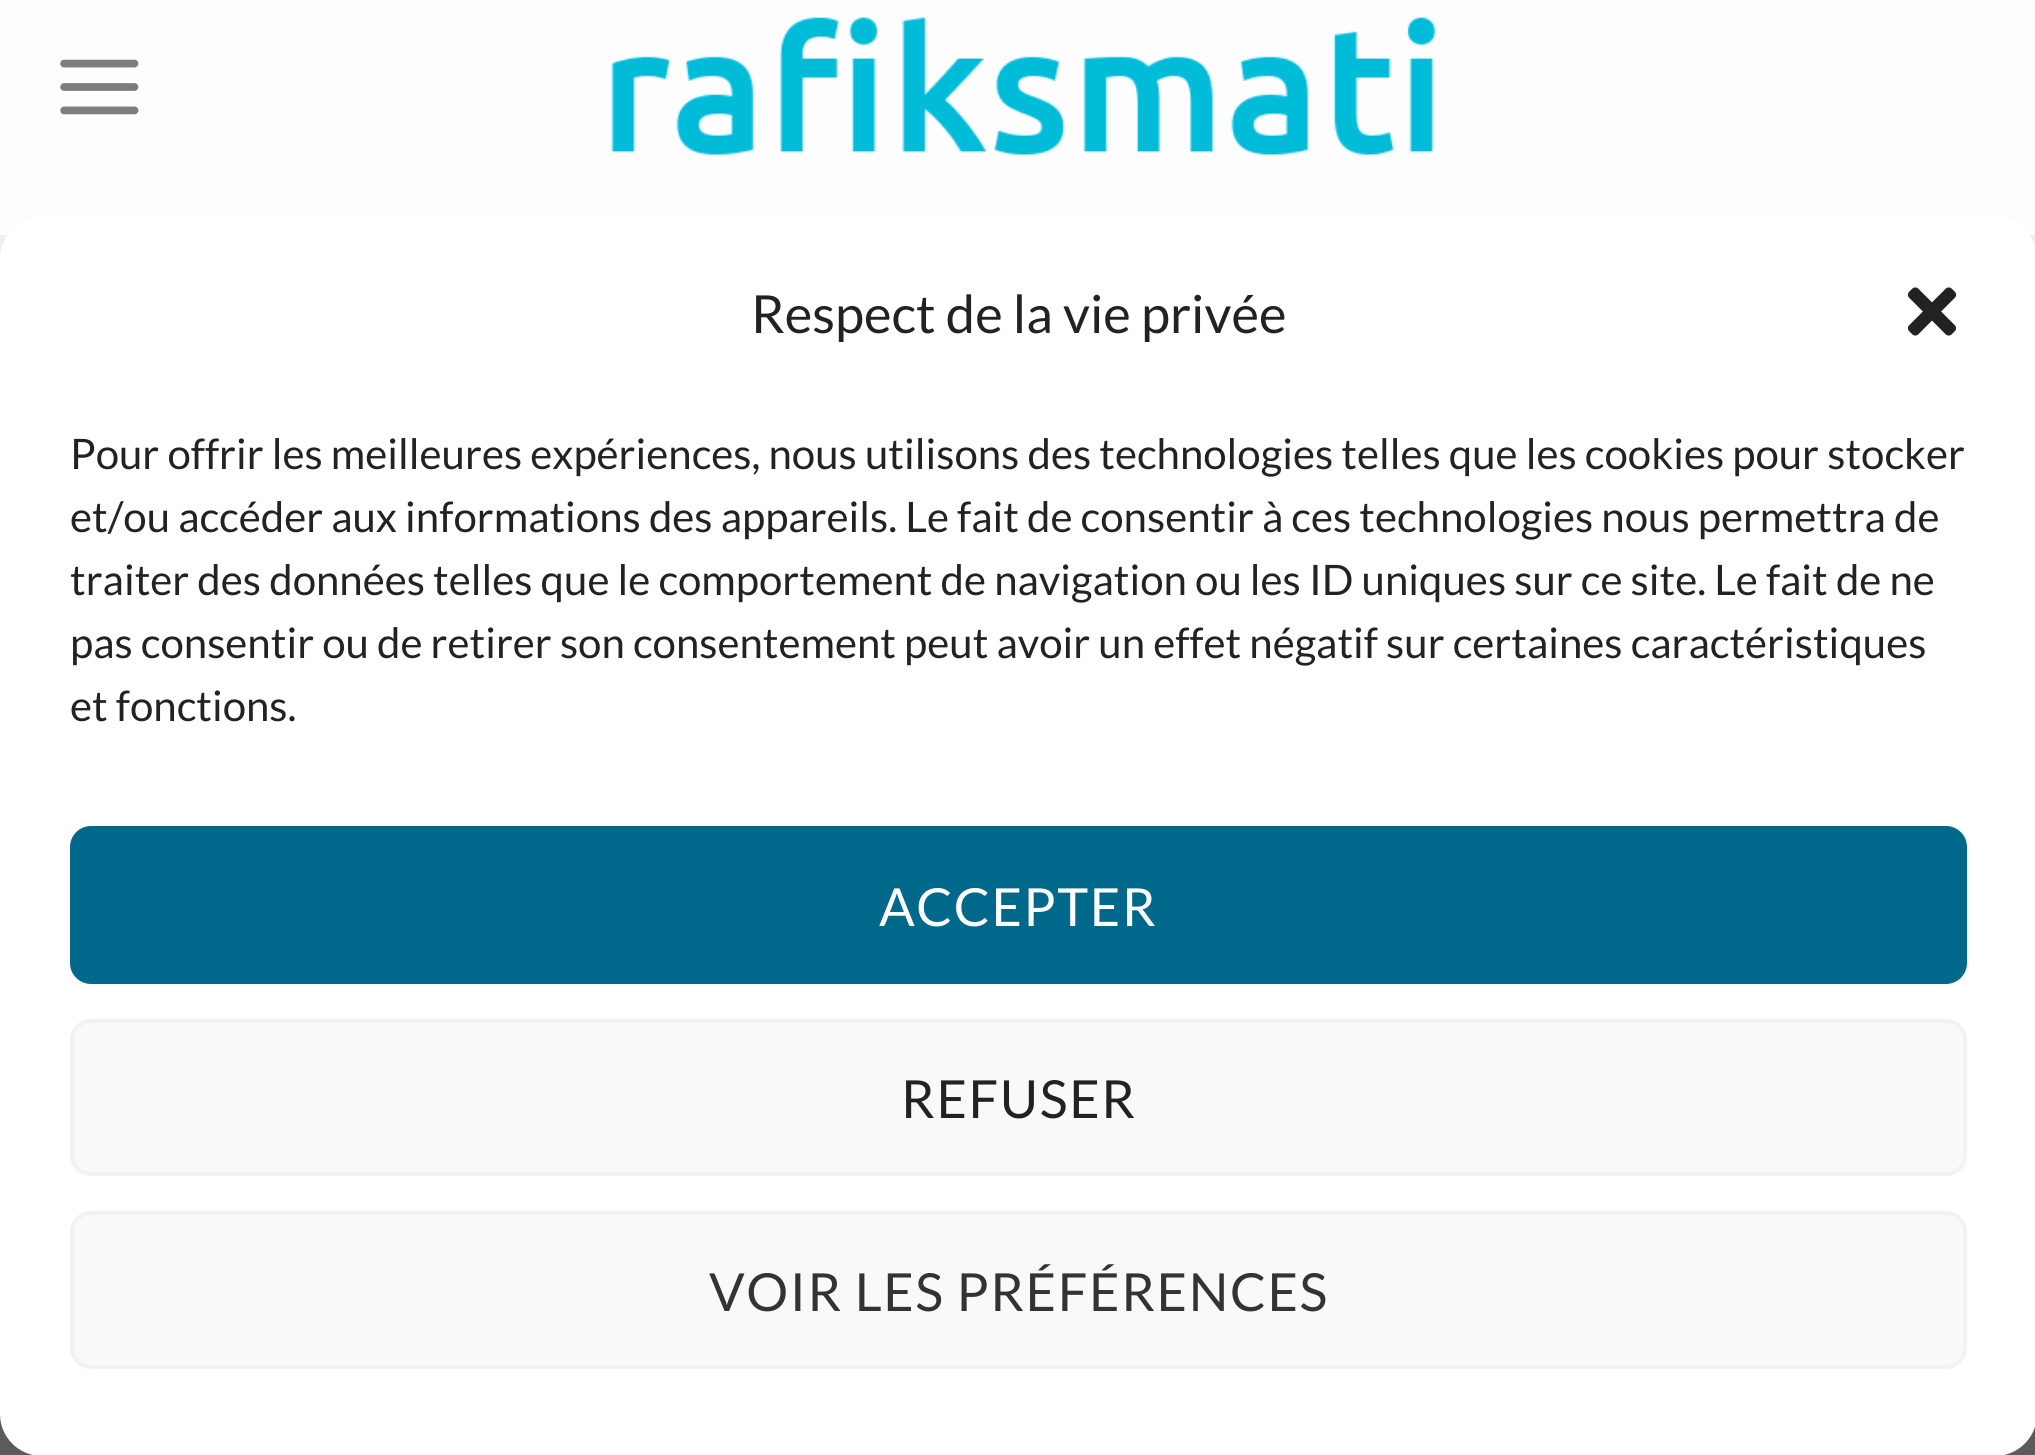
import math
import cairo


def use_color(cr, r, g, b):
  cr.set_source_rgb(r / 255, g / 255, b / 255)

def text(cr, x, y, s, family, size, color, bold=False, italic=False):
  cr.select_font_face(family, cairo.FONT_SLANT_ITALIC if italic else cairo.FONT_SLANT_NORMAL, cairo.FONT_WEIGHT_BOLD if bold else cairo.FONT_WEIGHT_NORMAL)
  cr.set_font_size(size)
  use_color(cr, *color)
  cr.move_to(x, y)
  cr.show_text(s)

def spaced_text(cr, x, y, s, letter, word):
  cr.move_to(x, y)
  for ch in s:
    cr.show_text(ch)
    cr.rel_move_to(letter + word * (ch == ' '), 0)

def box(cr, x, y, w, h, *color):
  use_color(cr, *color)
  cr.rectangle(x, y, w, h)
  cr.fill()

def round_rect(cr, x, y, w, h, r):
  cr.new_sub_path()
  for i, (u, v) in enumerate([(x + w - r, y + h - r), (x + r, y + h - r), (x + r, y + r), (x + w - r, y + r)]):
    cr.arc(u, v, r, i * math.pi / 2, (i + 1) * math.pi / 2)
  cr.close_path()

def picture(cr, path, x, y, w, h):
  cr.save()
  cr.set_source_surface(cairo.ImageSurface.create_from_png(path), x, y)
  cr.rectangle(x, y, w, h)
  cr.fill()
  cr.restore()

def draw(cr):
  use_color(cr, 239, 239, 239)
  cr.paint()
  box(cr, 0, 0, 2035, 235, 253, 253, 253)
  picture(cr, "img_01.png", 60, 59, 79, 56)
  picture(cr, "img_02.png", 611, 17, 825, 138)
  box(cr, 0, 1414, 2035, 41, 91, 91, 91)
  use_color(cr, 255, 255, 255)
  round_rect(cr, 0, 217, 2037, 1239, 42)
  cr.fill()
  picture(cr, "img_03.png", 1907, 287, 50, 49)
  use_color(cr, 0, 104, 139)
  round_rect(cr, 72, 828, 1893, 154, 19)
  cr.fill_preserve()
  cr.set_line_width(4)
  cr.stroke()
  use_color(cr, 249, 249, 249)
  round_rect(cr, 72, 1021, 1893, 153, 19)
  cr.fill_preserve()
  use_color(cr, 242, 242, 242)
  cr.stroke()
  use_color(cr, 249, 249, 249)
  round_rect(cr, 72, 1213, 1893, 154, 19)
  cr.fill_preserve()
  use_color(cr, 242, 242, 242)
  cr.stroke()
  text(cr, 751, 333, "Respect de la vie privée", "Lato", 52.5, (34, 34, 34))
  text(cr, 70, 469, "Pour offrir les meilleures expériences, nous utilisons des technologies telles que les cookies pour stocker", "Lato", 42, (34, 34, 34))
  text(cr, 70, 532, "et/ou accéder aux informations des appareils. Le fait de consentir à ces technologies nous permettra de", "Lato", 42, (34, 34, 34))
  text(cr, 70, 595, "traiter des données telles que le comportement de navigation ou les ID uniques sur ce site. Le fait de ne", "Lato", 42, (34, 34, 34))
  text(cr, 70, 658, "pas consentir ou de retirer son consentement peut avoir un effet négatif sur certaines caractéristiques", "Lato", 42, (34, 34, 34))
  text(cr, 70, 721, "et fonctions.", "Lato", 42, (34, 34, 34))
  cr.set_font_size(52.5)
  use_color(cr, 255, 255, 255)
  spaced_text(cr, 879, 926, "ACCEPTER", 1.6, 0)
  use_color(cr, 34, 34, 34)
  spaced_text(cr, 901, 1118, "REFUSER", 1.6, 0)
  use_color(cr, 51, 51, 51)
  spaced_text(cr, 709, 1311, "VOIR LES PRÉFÉRENCES", 1.6, 0)


surface = cairo.ImageSurface(cairo.FORMAT_RGB24, 2035, 1455)
cr = cairo.Context(surface)
options = cairo.FontOptions()
options.set_hint_metrics(cairo.HINT_METRICS_OFF)
options.set_hint_style(cairo.HINT_STYLE_NONE)
cr.set_font_options(options)
cr.set_miter_limit(4)
draw(cr)
surface.write_to_png("out.png")
